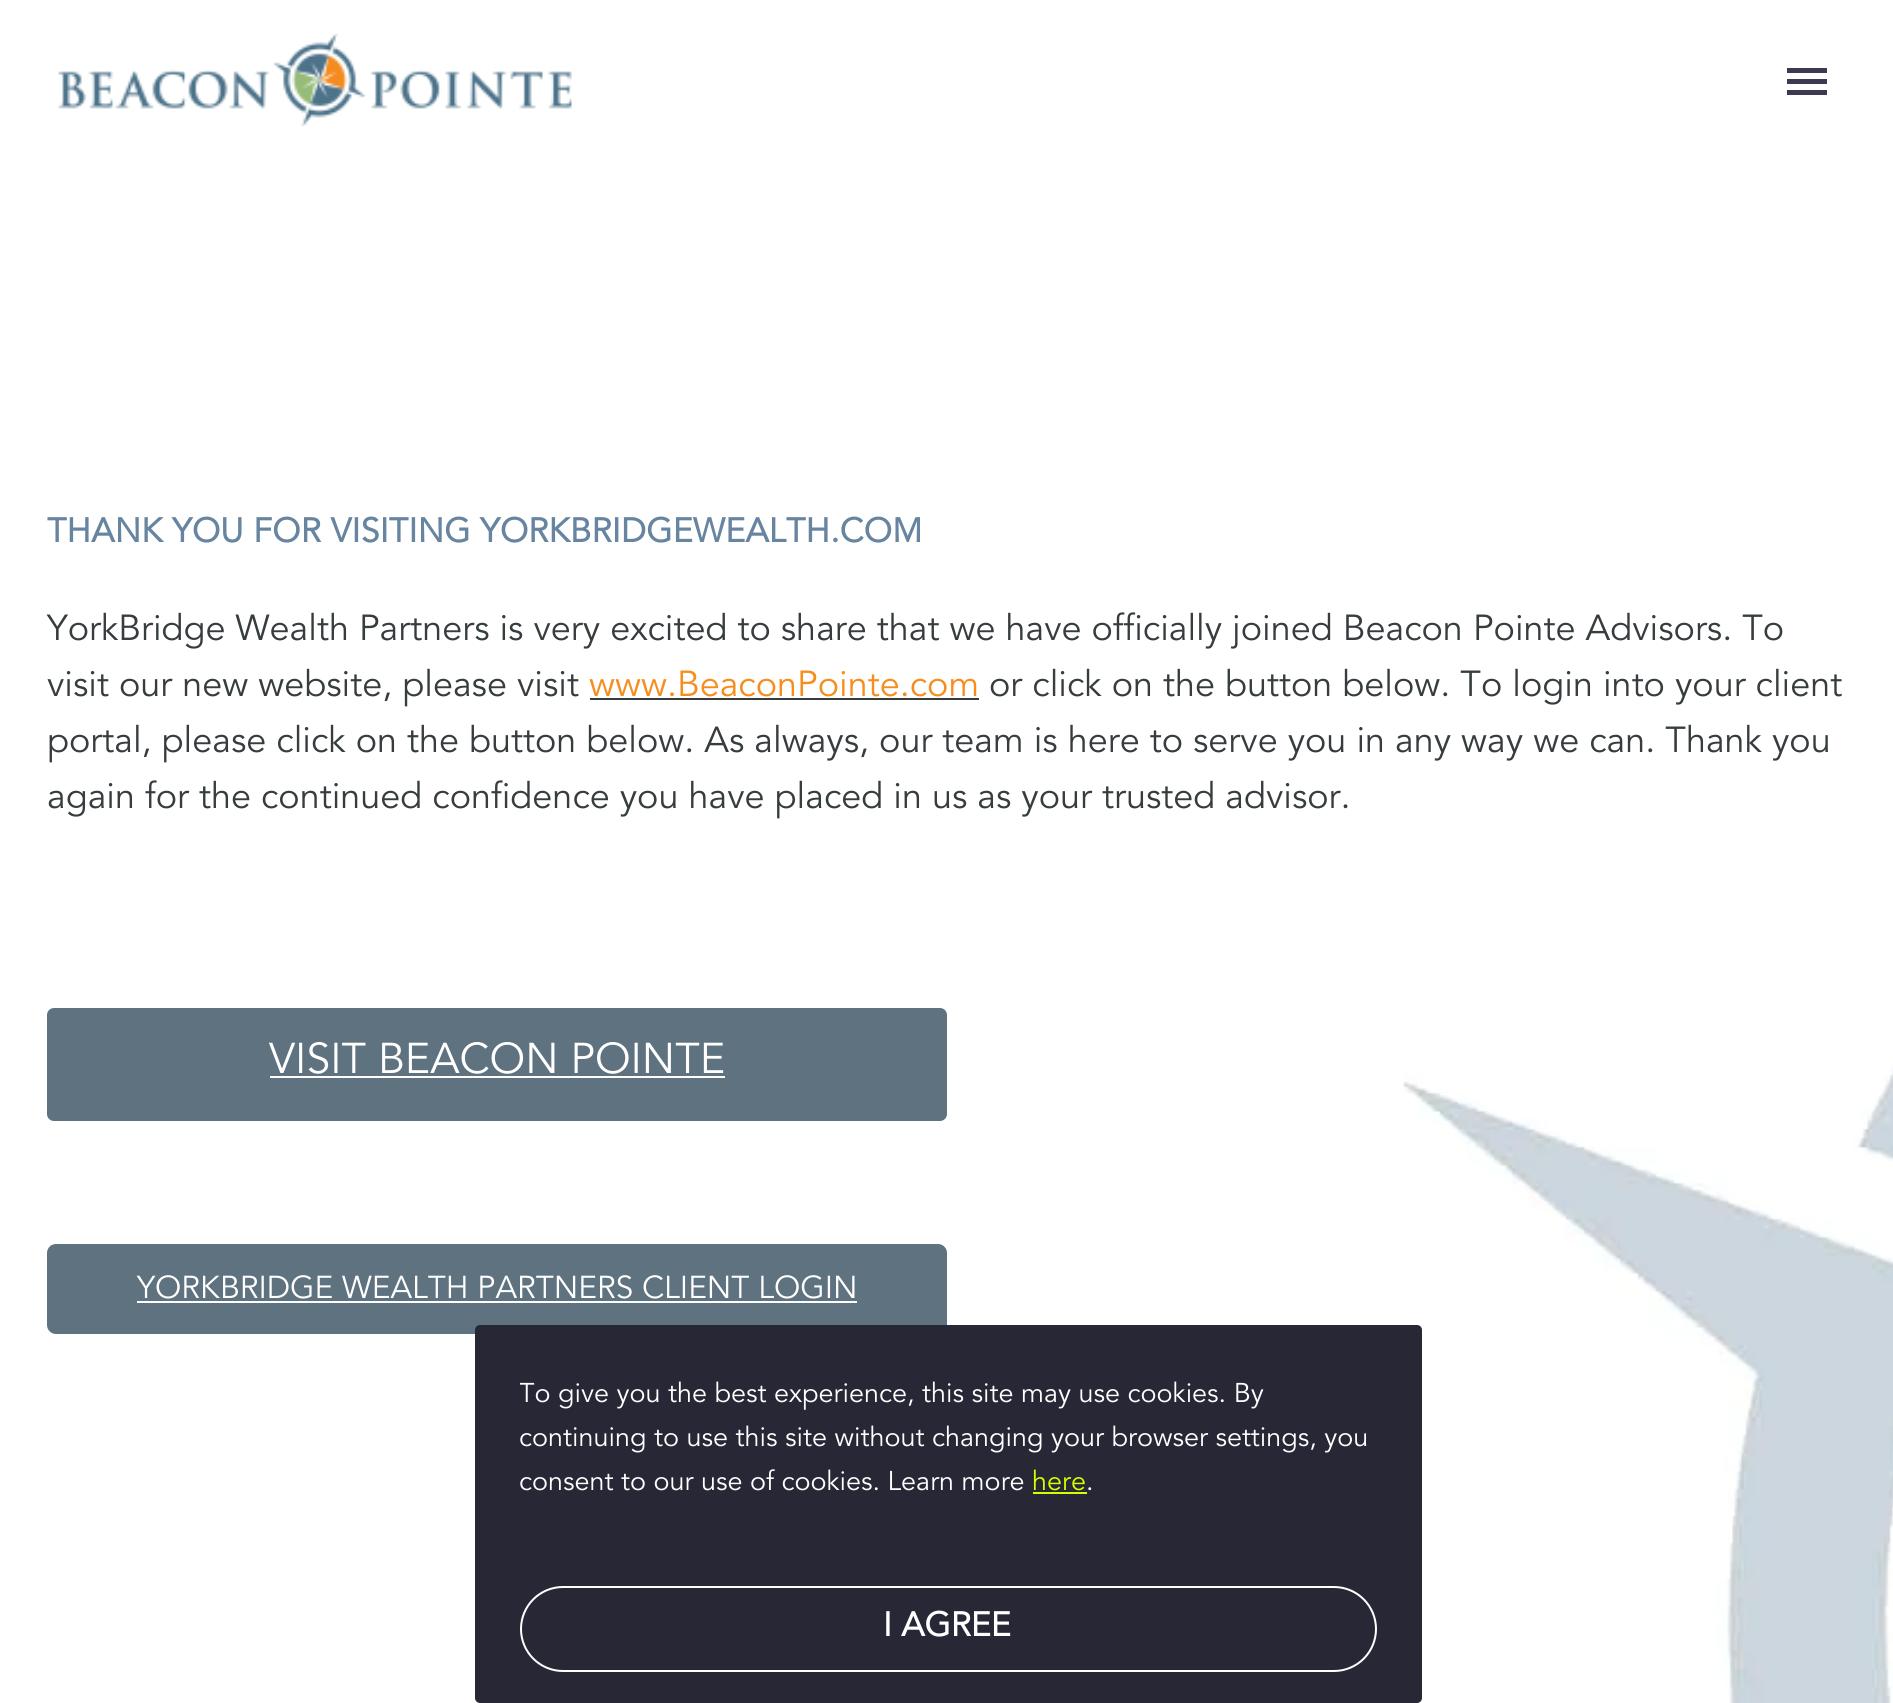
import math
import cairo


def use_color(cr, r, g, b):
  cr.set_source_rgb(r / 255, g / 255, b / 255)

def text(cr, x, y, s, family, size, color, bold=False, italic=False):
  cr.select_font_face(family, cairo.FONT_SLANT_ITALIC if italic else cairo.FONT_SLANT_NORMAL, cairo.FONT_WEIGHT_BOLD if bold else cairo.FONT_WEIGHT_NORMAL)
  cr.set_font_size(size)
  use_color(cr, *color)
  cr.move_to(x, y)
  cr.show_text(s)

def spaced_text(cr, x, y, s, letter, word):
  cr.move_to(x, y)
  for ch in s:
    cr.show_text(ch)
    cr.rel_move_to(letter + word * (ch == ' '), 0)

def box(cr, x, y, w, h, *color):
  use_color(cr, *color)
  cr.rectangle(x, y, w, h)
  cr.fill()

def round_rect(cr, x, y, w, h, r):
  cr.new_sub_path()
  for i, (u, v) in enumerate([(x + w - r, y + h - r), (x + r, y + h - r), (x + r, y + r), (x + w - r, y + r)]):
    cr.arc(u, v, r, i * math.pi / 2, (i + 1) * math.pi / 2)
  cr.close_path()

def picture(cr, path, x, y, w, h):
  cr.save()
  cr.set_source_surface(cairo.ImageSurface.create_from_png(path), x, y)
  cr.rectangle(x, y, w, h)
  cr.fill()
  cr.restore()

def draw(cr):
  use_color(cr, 255, 255, 255)
  cr.paint()
  picture(cr, "img_01.png", 58, 33, 514, 93)
  box(cr, 1787, 68, 40, 5, 60, 57, 80)
  box(cr, 1787, 79, 40, 5, 60, 57, 80)
  box(cr, 1787, 90, 40, 5, 60, 57, 80)
  picture(cr, "img_02.png", 1403, 1015, 490, 688)
  box(cr, 590, 698, 389, 2, 55, 61, 63)
  use_color(cr, 95, 114, 127)
  round_rect(cr, 47, 1008, 900, 113, 7)
  cr.fill()
  box(cr, 270, 1076, 455, 2, 255, 255, 255)
  use_color(cr, 95, 114, 127)
  round_rect(cr, 47, 1244, 900, 90, 9)
  cr.fill()
  box(cr, 137, 1301, 720, 2, 255, 255, 255)
  use_color(cr, 39, 39, 54)
  round_rect(cr, 475, 1325, 947, 378, 5)
  cr.fill()
  box(cr, 1033, 1492, 54, 2, 213, 255, 0)
  round_rect(cr, 521, 1587, 855, 84, 42)
  use_color(cr, 255, 255, 255)
  cr.stroke()
  cr.select_font_face("Avenir", cairo.FONT_SLANT_NORMAL, cairo.FONT_WEIGHT_BOLD)
  cr.set_font_size(33.75)
  use_color(cr, 103, 132, 160)
  spaced_text(cr, 47, 542, "THANK YOU FOR VISITING YORKBRIDGEWEALTH.COM", 0.25, 0)
  text(cr, 47, 640, "YorkBridge Wealth Partners is very excited to share that we have officially joined Beacon Pointe Advisors. To", "Avenir", 36, (55, 61, 63))
  text(cr, 47, 696, "visit our new website, please visit", "Avenir", 36, (55, 61, 63))
  text(cr, 589, 696, "www.BeaconPointe.com", "Avenir", 36, (247, 141, 30))
  text(cr, 989, 696, "or click on the button below. To login into your client", "Avenir", 36, (55, 61, 63))
  text(cr, 47, 752, "portal, please click on the button below. As always, our team is here to serve you in any way we can. Thank you", "Avenir", 36, (55, 61, 63))
  text(cr, 47, 808, "again for the continued confidence you have placed in us as your trusted advisor.", "Avenir", 36, (55, 61, 63))
  text(cr, 269, 1073, "VISIT BEACON POINTE", "Avenir", 42.75, (255, 255, 255))
  text(cr, 137, 1298, "YORKBRIDGE WEALTH PARTNERS CLIENT LOGIN", "Avenir", 31.5, (255, 255, 255))
  cr.save()
  cr.rectangle(520, 1375, 857, 162)
  cr.clip()
  text(cr, 519, 1402, "To give you the best experience, this site may use cookies. By", "Avenir", 27, (255, 255, 255))
  cr.restore()
  text(cr, 519, 1446, "continuing to use this site without changing your browser settings, you", "Avenir", 27, (255, 255, 255))
  text(cr, 519, 1490, "consent to our use of cookies. Learn more", "Avenir", 27, (255, 255, 255))
  text(cr, 1032, 1490, "here", "Avenir", 27, (213, 255, 0))
  text(cr, 1086, 1490, ".", "Avenir", 27, (255, 255, 255))
  text(cr, 883, 1636, "I AGREE", "Avenir", 33.75, (255, 255, 255), bold=True)


surface = cairo.ImageSurface(cairo.FORMAT_RGB24, 1893, 1703)
cr = cairo.Context(surface)
options = cairo.FontOptions()
options.set_hint_metrics(cairo.HINT_METRICS_OFF)
options.set_hint_style(cairo.HINT_STYLE_NONE)
cr.set_font_options(options)
cr.set_miter_limit(4)
draw(cr)
surface.write_to_png("out.png")
